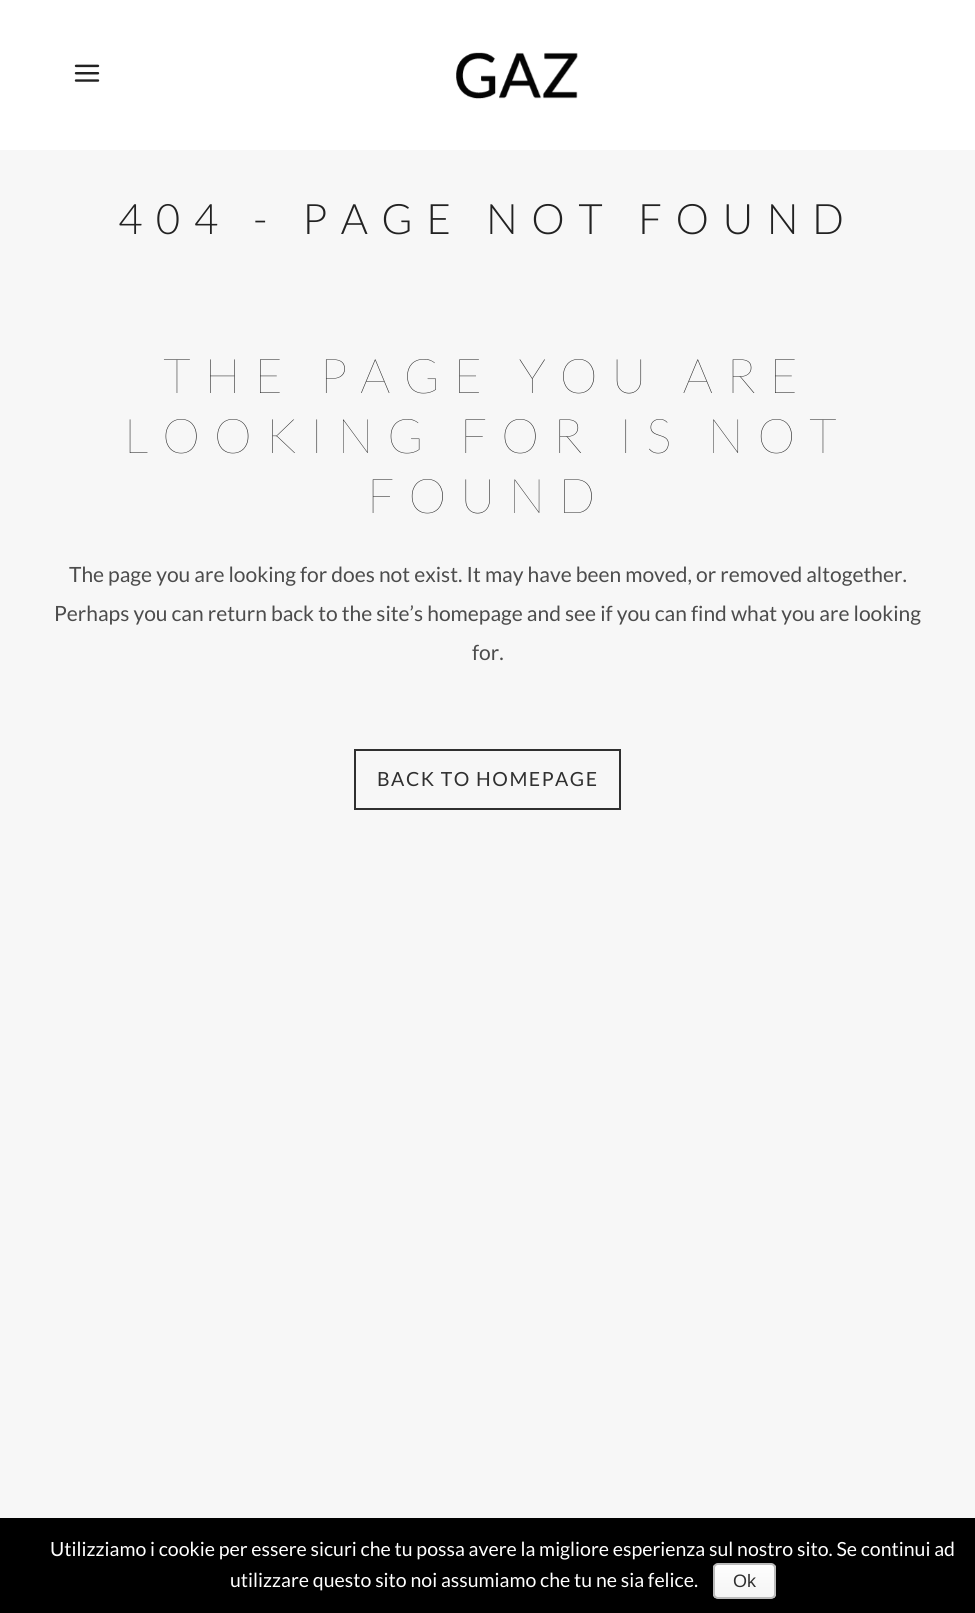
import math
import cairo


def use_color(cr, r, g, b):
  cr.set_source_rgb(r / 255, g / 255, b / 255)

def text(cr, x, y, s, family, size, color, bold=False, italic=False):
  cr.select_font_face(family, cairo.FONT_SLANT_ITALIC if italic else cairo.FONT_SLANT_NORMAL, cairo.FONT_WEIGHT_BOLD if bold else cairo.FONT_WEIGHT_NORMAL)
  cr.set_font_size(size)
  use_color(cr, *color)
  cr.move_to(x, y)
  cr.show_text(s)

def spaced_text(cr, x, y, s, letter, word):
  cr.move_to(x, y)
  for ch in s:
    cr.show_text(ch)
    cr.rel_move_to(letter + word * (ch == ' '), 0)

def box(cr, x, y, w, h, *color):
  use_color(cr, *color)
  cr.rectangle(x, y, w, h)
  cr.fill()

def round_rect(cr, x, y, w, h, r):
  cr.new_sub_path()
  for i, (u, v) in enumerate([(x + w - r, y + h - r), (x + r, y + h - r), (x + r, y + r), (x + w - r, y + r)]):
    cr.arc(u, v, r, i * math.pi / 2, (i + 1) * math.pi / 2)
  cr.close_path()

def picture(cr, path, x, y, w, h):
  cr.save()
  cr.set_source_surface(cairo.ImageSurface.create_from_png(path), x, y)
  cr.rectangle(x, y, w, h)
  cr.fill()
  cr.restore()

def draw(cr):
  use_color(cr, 247, 247, 247)
  cr.paint()
  box(cr, 0, 0, 975, 150, 255, 255, 255)
  picture(cr, "img_01.png", 74, 64, 26, 18)
  picture(cr, "img_02.png", 456, 52, 122, 47)
  cr.rectangle(355, 750, 265, 59)
  use_color(cr, 48, 48, 48)
  cr.stroke()
  box(cr, 0, 1518, 975, 95, 0, 0, 0)
  cr.save()
  round_rect(cr, 713, 1563, 63, 36, 5)
  cr.clip()
  gradient = cairo.LinearGradient(744, 1565, 744, 1598)
  gradient.add_color_stop_rgba(0, 0.996, 0.996, 0.996, 1)
  gradient.add_color_stop_rgba(1, 0.957, 0.957, 0.957, 1)
  cr.set_source(gradient)
  cr.rectangle(713, 1565, 63, 33)
  cr.fill()
  cr.restore()
  round_rect(cr, 714, 1564, 61, 34, 4)
  use_color(cr, 187, 187, 187)
  cr.stroke()
  cr.select_font_face("Lato Light")
  cr.set_font_size(42)
  use_color(cr, 34, 34, 34)
  spaced_text(cr, 118, 234, "404 - PAGE NOT FOUND", 13.5, 0)
  cr.select_font_face("Lato Thin")
  cr.set_font_size(48)
  spaced_text(cr, 163, 393, "THE PAGE YOU ARE", 13.5, 0)
  spaced_text(cr, 124, 453, "LOOKING FOR IS NOT", 13.5, 0)
  spaced_text(cr, 367, 513, "FOUND", 13.5, 0)
  text(cr, 69, 582, "The page you are looking for does not exist. It may have been moved, or removed altogether.", "Lato", 21, (76, 76, 76))
  text(cr, 54, 621, "Perhaps you can return back to the site’s homepage and see if you can find what you are looking", "Lato", 21, (76, 76, 76))
  text(cr, 472, 660, "for.", "Lato", 21, (76, 76, 76))
  cr.set_font_size(19.5)
  use_color(cr, 48, 48, 48)
  spaced_text(cr, 377, 786, "BACK TO HOMEPAGE", 1.5, 0)
  text(cr, 50, 1556, "Utilizziamo i cookie per essere sicuri che tu possa avere la migliore esperienza sul nostro sito. Se continui ad", "Lato", 19.5, (255, 255, 255))
  text(cr, 230, 1587, "utilizzare questo sito noi assumiamo che tu ne sia felice.", "Lato", 19.5, (255, 255, 255))
  text(cr, 733, 1587, "Ok", "Liberation Sans", 18, (48, 48, 48))


surface = cairo.ImageSurface(cairo.FORMAT_RGB24, 975, 1613)
cr = cairo.Context(surface)
options = cairo.FontOptions()
options.set_hint_metrics(cairo.HINT_METRICS_OFF)
options.set_hint_style(cairo.HINT_STYLE_NONE)
cr.set_font_options(options)
cr.set_miter_limit(4)
draw(cr)
surface.write_to_png("out.png")
